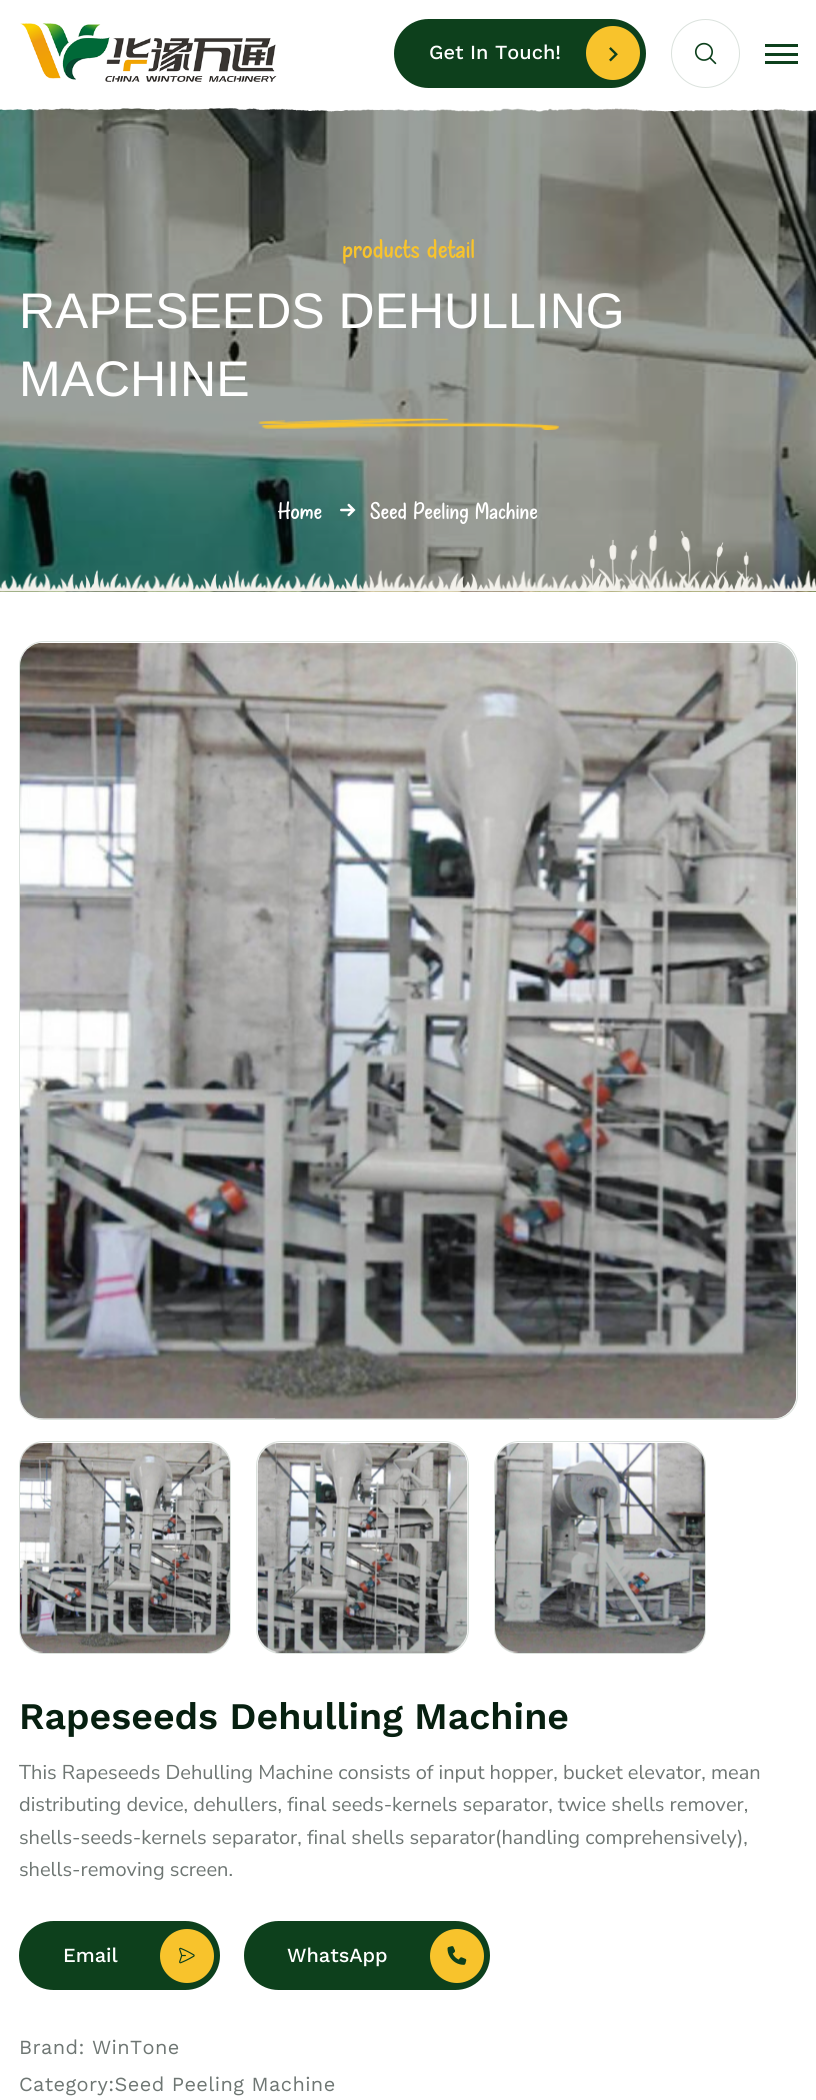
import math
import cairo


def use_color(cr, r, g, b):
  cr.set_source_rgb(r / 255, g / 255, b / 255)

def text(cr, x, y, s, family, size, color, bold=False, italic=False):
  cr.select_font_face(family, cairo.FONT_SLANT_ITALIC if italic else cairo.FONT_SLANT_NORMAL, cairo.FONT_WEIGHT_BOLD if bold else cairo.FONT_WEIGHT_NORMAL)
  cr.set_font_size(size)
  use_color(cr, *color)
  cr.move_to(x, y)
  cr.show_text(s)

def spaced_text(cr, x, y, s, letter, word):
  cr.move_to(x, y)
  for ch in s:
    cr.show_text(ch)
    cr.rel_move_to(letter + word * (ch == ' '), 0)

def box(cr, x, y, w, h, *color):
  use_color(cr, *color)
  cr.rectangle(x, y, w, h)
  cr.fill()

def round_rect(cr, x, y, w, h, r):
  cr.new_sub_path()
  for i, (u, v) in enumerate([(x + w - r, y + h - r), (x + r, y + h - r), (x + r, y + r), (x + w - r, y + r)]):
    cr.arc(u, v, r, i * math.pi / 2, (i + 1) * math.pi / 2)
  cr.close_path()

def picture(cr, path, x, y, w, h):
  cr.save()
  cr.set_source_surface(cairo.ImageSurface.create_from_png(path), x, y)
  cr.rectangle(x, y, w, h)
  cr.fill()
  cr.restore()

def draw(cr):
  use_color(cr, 255, 255, 255)
  cr.paint()
  picture(cr, "img_01.png", 20, 23, 257, 59)
  use_color(cr, 13, 64, 28)
  round_rect(cr, 394, 19, 252, 69, 34.5)
  cr.fill()
  use_color(cr, 248, 195, 44)
  cr.arc(613, 53, 27, 0, 2 * math.pi)
  cr.fill()
  picture(cr, "img_02.png", 609, 47, 9, 15)
  cr.arc(705.5, 53.5, 34, 0, 2 * math.pi)
  use_color(cr, 219, 226, 221)
  cr.set_line_width(1)
  cr.stroke()
  picture(cr, "img_03.png", 694, 42, 23, 23)
  box(cr, 765, 44, 33, 3, 13, 64, 28)
  box(cr, 765, 53, 33, 3, 13, 64, 28)
  box(cr, 765, 61, 33, 3, 13, 64, 28)
  picture(cr, "img_05.png", 0, 591, 816, 1)
  picture(cr, "img_06.png", 0, 107, 816, 485)
  picture(cr, "img_04.png", 0, 93, 816, 19)
  picture(cr, "img_07.png", 258, 418, 301, 12)
  picture(cr, "img_08.png", 340, 503, 16, 14)
  picture(cr, "img_09.png", 0, 530, 816, 62)
  round_rect(cr, 19.5, 641.5, 778, 778, 24.5)
  use_color(cr, 219, 226, 221)
  cr.stroke()
  picture(cr, "img_10.png", 20, 643, 777, 776)
  round_rect(cr, 19.5, 1441.5, 211, 212, 24.5)
  cr.stroke()
  picture(cr, "img_11.png", 20, 1443, 210, 210)
  round_rect(cr, 256.5, 1441.5, 212, 212, 24.5)
  cr.stroke()
  picture(cr, "img_12.png", 257, 1443, 211, 210)
  round_rect(cr, 494.5, 1441.5, 211, 212, 24.5)
  cr.stroke()
  picture(cr, "img_13.png", 495, 1443, 210, 210)
  use_color(cr, 13, 64, 28)
  round_rect(cr, 19, 1921, 201, 69, 34.5)
  cr.fill()
  use_color(cr, 248, 195, 44)
  cr.arc(187, 1956, 27, 0, 2 * math.pi)
  cr.fill()
  picture(cr, "img_14.png", 179, 1947, 16, 17)
  use_color(cr, 13, 64, 28)
  round_rect(cr, 244, 1921, 246, 69, 34.5)
  cr.fill()
  use_color(cr, 248, 195, 44)
  cr.arc(457, 1956, 27, 0, 2 * math.pi)
  cr.fill()
  picture(cr, "img_15.png", 447, 1946, 20, 19)
  text(cr, 429, 59, "Get In Touch!", "Work Sans Medium", 20, (255, 255, 255))
  text(cr, 342, 258, "products detail", "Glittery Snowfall", 28.75, (248, 195, 44))
  text(cr, 19, 328, "RAPESEEDS DEHULLING", "Liberation Sans", 50, (255, 255, 255))
  text(cr, 19, 396, "MACHINE", "Liberation Sans", 50, (255, 255, 255))
  text(cr, 278, 519, "Home", "Glittery Snowfall", 25, (255, 255, 255))
  text(cr, 370, 519, "Seed Peeling Machine", "Glittery Snowfall", 25, (255, 255, 255))
  text(cr, 19, 1729, "Rapeseeds Dehulling Machine", "Work Sans SemiBold", 37.5, (7, 32, 16))
  text(cr, 19, 1779, "This Rapeseeds Dehulling Machine consists of input hopper, bucket elevator, mean", "Nunito Sans", 20, (110, 118, 115))
  text(cr, 19, 1811, "distributing device, dehullers, final seeds-kernels separator, twice shells remover,", "Nunito Sans", 20, (110, 118, 115))
  text(cr, 19, 1844, "shells-seeds-kernels separator, final shells separator(handling comprehensively),", "Nunito Sans", 20, (110, 118, 115))
  text(cr, 19, 1876, "shells-removing screen.", "Nunito Sans", 20, (110, 118, 115))
  text(cr, 63, 1962, "Email", "Work Sans Medium", 20, (255, 255, 255))
  text(cr, 287, 1962, "WhatsApp", "Work Sans Medium", 20, (255, 255, 255))
  cr.select_font_face("Work Sans")
  use_color(cr, 110, 118, 115)
  spaced_text(cr, 19, 2054, "Brand: WinTone", 0.4, 0)
  spaced_text(cr, 19, 2091, "Category:Seed Peeling Machine", 0.4, 0)


surface = cairo.ImageSurface(cairo.FORMAT_RGB24, 816, 2100)
cr = cairo.Context(surface)
options = cairo.FontOptions()
options.set_hint_metrics(cairo.HINT_METRICS_OFF)
options.set_hint_style(cairo.HINT_STYLE_NONE)
cr.set_font_options(options)
cr.set_miter_limit(4)
draw(cr)
surface.write_to_png("out.png")
